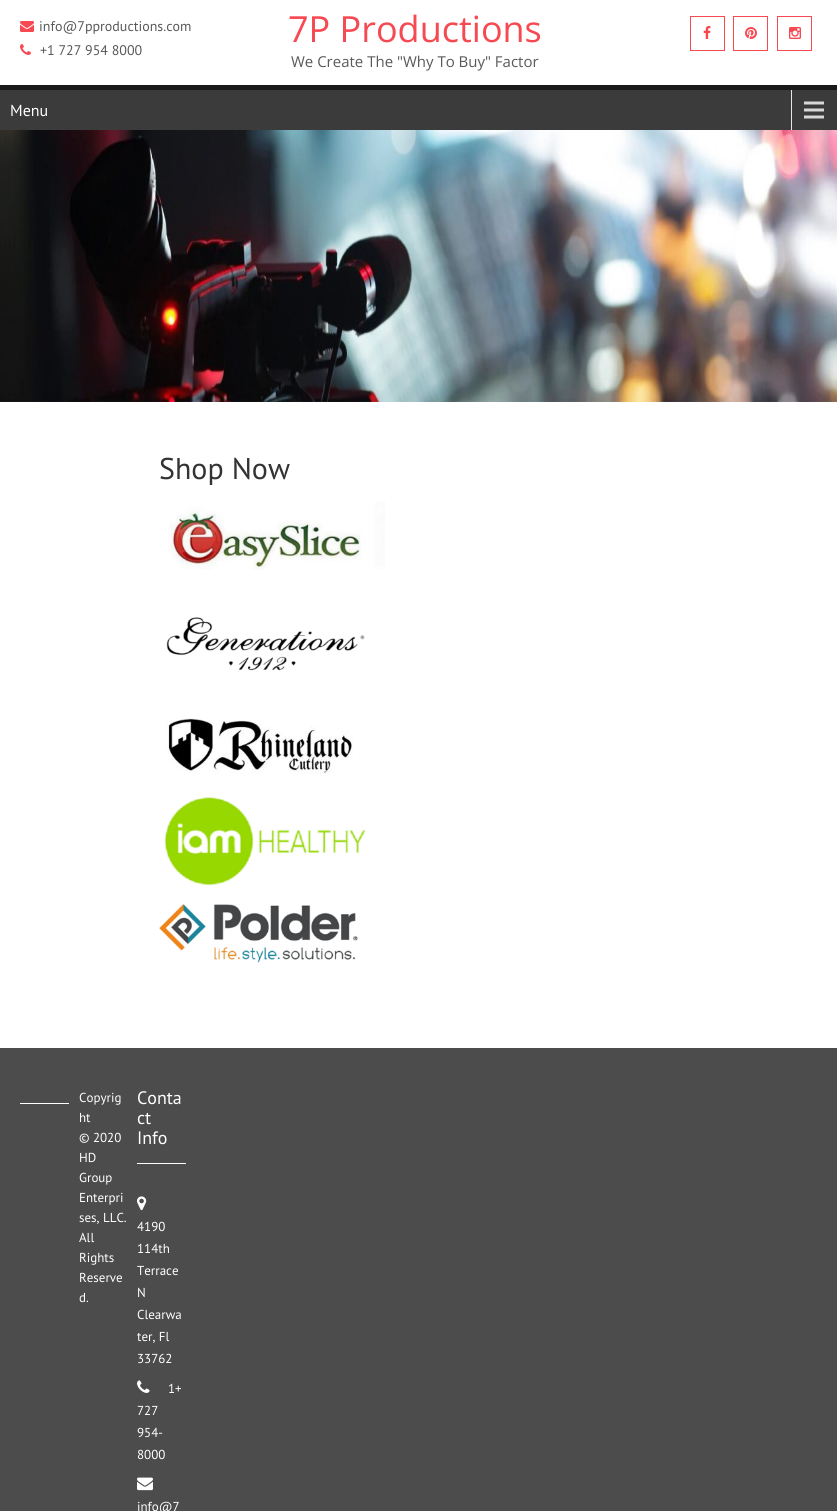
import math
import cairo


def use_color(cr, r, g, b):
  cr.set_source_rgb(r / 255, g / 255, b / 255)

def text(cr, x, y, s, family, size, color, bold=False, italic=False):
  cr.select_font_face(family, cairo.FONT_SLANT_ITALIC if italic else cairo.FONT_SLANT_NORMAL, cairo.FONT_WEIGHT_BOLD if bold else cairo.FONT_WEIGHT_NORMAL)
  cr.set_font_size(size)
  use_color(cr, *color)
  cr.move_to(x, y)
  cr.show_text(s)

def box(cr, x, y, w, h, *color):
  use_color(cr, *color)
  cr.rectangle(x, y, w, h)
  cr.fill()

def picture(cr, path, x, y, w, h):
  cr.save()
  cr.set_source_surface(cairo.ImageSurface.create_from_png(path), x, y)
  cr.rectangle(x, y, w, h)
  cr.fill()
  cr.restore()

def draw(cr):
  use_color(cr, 255, 255, 255)
  cr.paint()
  picture(cr, "img_01.png", 20, 21, 14, 11)
  picture(cr, "img_02.png", 20, 44, 11, 11)
  cr.rectangle(690.5, 16.5, 34, 34)
  use_color(cr, 247, 73, 81)
  cr.set_line_width(1)
  cr.stroke()
  picture(cr, "img_03.png", 703, 26, 8, 13)
  cr.rectangle(733.5, 16.5, 34, 34)
  cr.stroke()
  picture(cr, "img_04.png", 745, 27, 12, 12)
  cr.rectangle(777.5, 16.5, 34, 34)
  cr.stroke()
  picture(cr, "img_05.png", 789, 27, 12, 12)
  box(cr, 0, 85, 837, 5, 26, 25, 26)
  box(cr, 0, 90, 837, 40, 59, 59, 59)
  picture(cr, "img_06.png", 791, 90, 33, 40)
  picture(cr, "img_07.png", 0, 130, 837, 272)
  picture(cr, "img_08.png", 168, 501, 217, 69)
  picture(cr, "img_09.png", 166, 617, 199, 54)
  picture(cr, "img_10.png", 165, 718, 188, 56)
  picture(cr, "img_11.png", 164, 797, 202, 89)
  picture(cr, "img_12.png", 159, 904, 199, 59)
  box(cr, 0, 1048, 837, 463, 76, 76, 76)
  box(cr, 20, 1103, 49, 1, 255, 255, 255)
  box(cr, 137, 1163, 49, 1, 255, 255, 255)
  picture(cr, "img_13.png", 137, 1196, 10, 15)
  picture(cr, "img_14.png", 137, 1380, 13, 13)
  picture(cr, "img_15.png", 137, 1477, 16, 14)
  text(cr, 39, 31, "info@7pproductions.com", "PT Sans", 14, (89, 89, 89))
  text(cr, 40, 55, "+1 727 954 8000", "PT Sans", 14, (89, 89, 89))
  text(cr, 288, 42, "7P Productions", "Open Sans", 36, (247, 73, 81))
  text(cr, 291, 67, "We Create The \"Why To Buy\" Factor", "Open Sans", 15, (89, 89, 89))
  text(cr, 10, 116, "Menu", "PT Sans", 16, (255, 255, 255))
  text(cr, 159, 479, "Shop Now", "PT Sans", 30, (51, 51, 51))
  text(cr, 79, 1102, "Copyrig", "PT Sans", 13, (255, 255, 255))
  text(cr, 79, 1122, "ht", "PT Sans", 13, (255, 255, 255))
  text(cr, 79, 1142, "© 2020", "PT Sans", 13, (255, 255, 255))
  text(cr, 79, 1162, "HD", "PT Sans", 13, (255, 255, 255))
  text(cr, 79, 1182, "Group", "PT Sans", 13, (255, 255, 255))
  text(cr, 79, 1202, "Enterpri", "PT Sans", 13, (255, 255, 255))
  text(cr, 79, 1222, "ses, LLC.", "PT Sans", 13, (255, 255, 255))
  text(cr, 79, 1242, "All", "PT Sans", 13, (255, 255, 255))
  text(cr, 79, 1262, "Rights", "PT Sans", 13, (255, 255, 255))
  text(cr, 79, 1282, "Reserve", "PT Sans", 13, (255, 255, 255))
  text(cr, 79, 1302, "d.", "PT Sans", 13, (255, 255, 255))
  text(cr, 137, 1104, "Conta", "PT Sans", 18, (255, 255, 255))
  text(cr, 137, 1124, "ct", "PT Sans", 18, (255, 255, 255))
  text(cr, 137, 1144, "Info", "PT Sans", 18, (255, 255, 255))
  text(cr, 137, 1231, "4190", "PT Sans", 13, (255, 255, 255))
  text(cr, 137, 1253, "114th", "PT Sans", 13, (255, 255, 255))
  text(cr, 137, 1275, "Terrace", "PT Sans", 13, (255, 255, 255))
  text(cr, 137, 1297, "N", "PT Sans", 13, (255, 255, 255))
  text(cr, 137, 1319, "Clearwa", "PT Sans", 13, (255, 255, 255))
  text(cr, 137, 1341, "ter, Fl", "PT Sans", 13, (255, 255, 255))
  text(cr, 137, 1363, "33762", "PT Sans", 13, (255, 255, 255))
  text(cr, 168, 1393, "1+", "PT Sans", 13, (255, 255, 255))
  text(cr, 137, 1415, "727", "PT Sans", 13, (255, 255, 255))
  text(cr, 137, 1437, "954-", "PT Sans", 13, (255, 255, 255))
  text(cr, 137, 1459, "8000", "PT Sans", 13, (255, 255, 255))
  text(cr, 137, 1511, "info@7", "PT Sans", 13, (255, 255, 255))


surface = cairo.ImageSurface(cairo.FORMAT_RGB24, 837, 1511)
cr = cairo.Context(surface)
options = cairo.FontOptions()
options.set_hint_metrics(cairo.HINT_METRICS_OFF)
options.set_hint_style(cairo.HINT_STYLE_NONE)
cr.set_font_options(options)
cr.set_miter_limit(4)
draw(cr)
surface.write_to_png("out.png")
